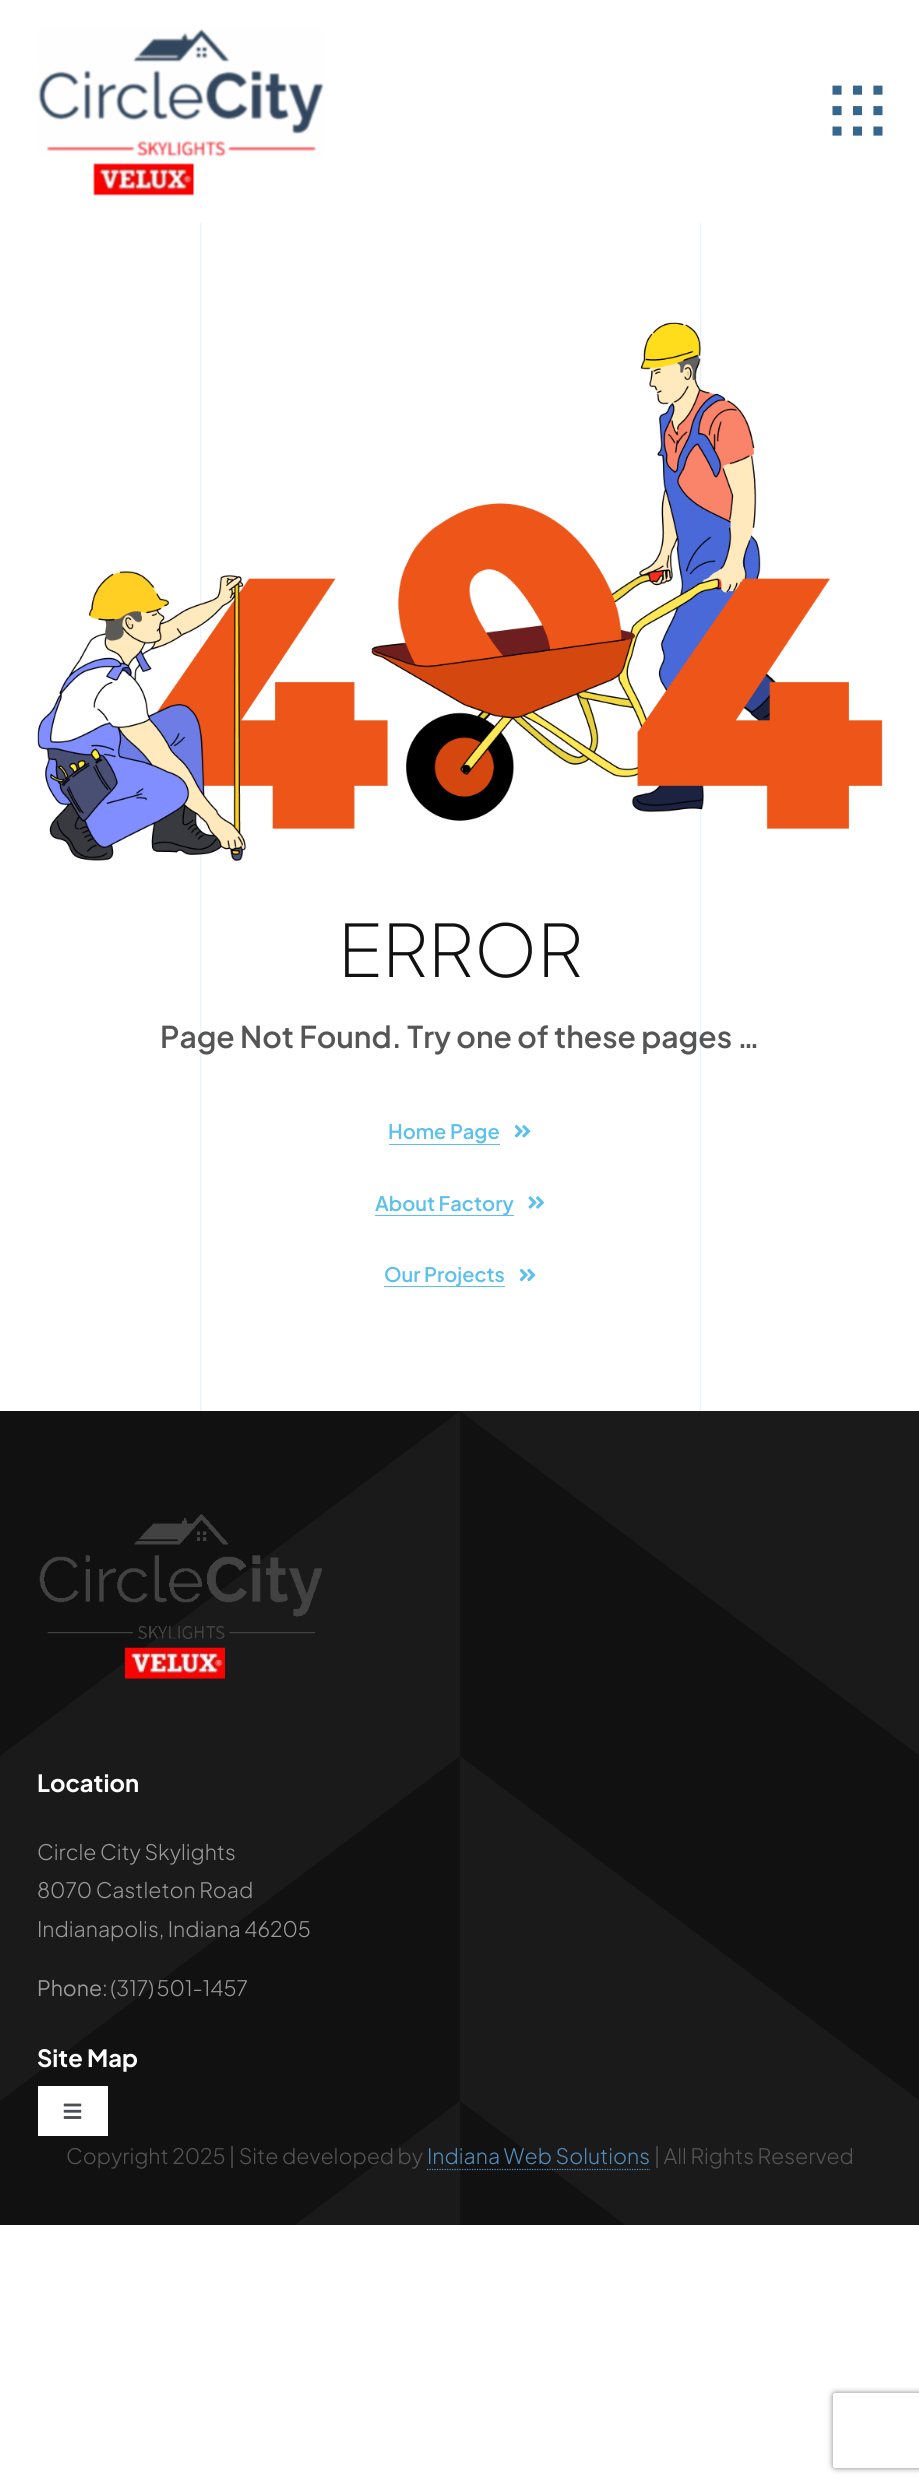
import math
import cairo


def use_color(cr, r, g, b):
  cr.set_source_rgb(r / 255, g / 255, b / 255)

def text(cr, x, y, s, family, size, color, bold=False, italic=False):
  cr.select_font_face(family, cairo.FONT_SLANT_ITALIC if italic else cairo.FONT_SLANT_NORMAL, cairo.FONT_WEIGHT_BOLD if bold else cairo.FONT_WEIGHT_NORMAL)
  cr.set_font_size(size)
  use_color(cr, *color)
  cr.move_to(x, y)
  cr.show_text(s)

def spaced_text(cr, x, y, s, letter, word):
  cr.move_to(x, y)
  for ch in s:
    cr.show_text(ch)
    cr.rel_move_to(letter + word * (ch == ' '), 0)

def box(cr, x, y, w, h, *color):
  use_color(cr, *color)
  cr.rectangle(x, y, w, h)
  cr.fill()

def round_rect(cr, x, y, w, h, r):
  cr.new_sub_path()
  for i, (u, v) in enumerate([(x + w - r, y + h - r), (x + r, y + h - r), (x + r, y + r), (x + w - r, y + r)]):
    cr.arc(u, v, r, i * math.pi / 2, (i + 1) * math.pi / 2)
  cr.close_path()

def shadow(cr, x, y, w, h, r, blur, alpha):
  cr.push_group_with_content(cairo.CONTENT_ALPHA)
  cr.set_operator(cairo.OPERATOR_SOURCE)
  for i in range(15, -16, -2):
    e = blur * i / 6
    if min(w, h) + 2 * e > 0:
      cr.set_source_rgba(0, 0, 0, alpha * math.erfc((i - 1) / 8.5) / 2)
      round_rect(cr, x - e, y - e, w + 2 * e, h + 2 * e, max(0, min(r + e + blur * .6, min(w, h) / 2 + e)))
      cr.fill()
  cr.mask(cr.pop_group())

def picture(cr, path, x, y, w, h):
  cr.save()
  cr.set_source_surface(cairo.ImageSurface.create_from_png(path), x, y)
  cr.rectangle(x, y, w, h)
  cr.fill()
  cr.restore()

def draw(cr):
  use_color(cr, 255, 255, 255)
  cr.paint()
  picture(cr, "img_01.png", 38, 28, 286, 129)
  picture(cr, "img_02.png", 93, 163, 102, 33)
  picture(cr, "img_03.png", 832, 85, 51, 51)
  picture(cr, "img_04.png", 200, 223, 502, 1188)
  picture(cr, "img_05.png", 37, 322, 846, 539)
  box(cr, 389, 1144, 111, 1, 91, 192, 235)
  picture(cr, "img_06.png", 514, 1125, 17, 13)
  box(cr, 375, 1215, 139, 1, 91, 192, 235)
  picture(cr, "img_07.png", 528, 1196, 16, 13)
  box(cr, 384, 1286, 121, 1, 91, 192, 235)
  picture(cr, "img_08.png", 519, 1268, 17, 14)
  box(cr, 0, 1411, 919, 814, 17, 17, 17)
  cr.save()
  cr.rectangle(0, 1411, 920, 814)
  cr.clip()
  use_color(cr, 26, 26, 26)
  cr.set_fill_rule(cairo.FILL_RULE_EVEN_ODD)
  cr.new_path()
  cr.move_to(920, 1411)
  cr.line_to(460, 1411)
  cr.line_to(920, 1756)
  cr.close_path()
  cr.move_to(460, 1756)
  cr.line_to(460, 1411)
  cr.line_to(0, 1756)
  cr.line_to(0, 2101)
  cr.line_to(460, 1756)
  cr.line_to(460, 2101)
  cr.line_to(0, 2446)
  cr.line_to(0, 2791)
  cr.line_to(460, 2446)
  cr.line_to(460, 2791)
  cr.line_to(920, 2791)
  cr.line_to(460, 2446)
  cr.line_to(460, 2101)
  cr.line_to(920, 2446)
  cr.line_to(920, 2101)
  cr.close_path()
  cr.fill()
  cr.restore()
  picture(cr, "img_09.png", 39, 1514, 283, 125)
  picture(cr, "img_10.png", 125, 1647, 100, 32)
  box(cr, 38, 2086, 70, 50, 255, 255, 255)
  picture(cr, "img_11.png", 63, 2103, 19, 16)
  cr.new_path()
  cr.move_to(427, 2169.5)
  cr.line_to(650, 2169.5)
  use_color(cr, 81, 141, 189)
  cr.set_line_width(1.2)
  cr.set_dash([1.25, 1.25])
  cr.stroke()
  cr.save()
  cr.set_fill_rule(cairo.FILL_RULE_EVEN_ODD)
  cr.new_path()
  cr.move_to(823, 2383)
  cr.line_to(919, 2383)
  cr.line_to(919, 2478)
  cr.line_to(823, 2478)
  cr.close_path()
  cr.move_to(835.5, 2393)
  cr.line_to(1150.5, 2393)
  cr.curve_to(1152, 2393, 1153, 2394, 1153, 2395.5)
  cr.line_to(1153, 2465.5)
  cr.curve_to(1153, 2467, 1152, 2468, 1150.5, 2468)
  cr.line_to(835.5, 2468)
  cr.curve_to(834, 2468, 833, 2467, 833, 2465.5)
  cr.line_to(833, 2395.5)
  cr.curve_to(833, 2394, 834, 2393, 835.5, 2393)
  cr.close_path()
  cr.clip()
  use_color(cr, 128, 128, 128)
  shadow(cr, 833, 2393, 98, 75, 2.5, 3, 1)
  cr.restore()
  text(cr, 338, 977, "ERROR", "Plus Jakarta Sans ExtraLight", 72, (17, 17, 17))
  text(cr, 160, 1048, "Page Not Found. Try one of these pages …", "Plus Jakarta Sans SemiBold", 30, (85, 85, 85))
  text(cr, 388, 1139, "Home Page", "Plus Jakarta Sans SemiBold", 20, (91, 192, 235))
  text(cr, 375, 1211, "About Factory", "Plus Jakarta Sans SemiBold", 20, (91, 192, 235))
  text(cr, 384, 1282, "Our Projects", "Plus Jakarta Sans SemiBold", 20, (91, 192, 235))
  text(cr, 37, 1792, "Location", "Plus Jakarta Sans", 23.75, (255, 255, 255), bold=True)
  text(cr, 37, 1860, "Circle City Skylights", "Plus Jakarta Sans Light", 21.25, (153, 153, 153))
  text(cr, 37, 1898, "8070 Castleton Road", "Plus Jakarta Sans Light", 21.25, (153, 153, 153))
  text(cr, 37, 1937, "Indianapolis, Indiana 46205", "Plus Jakarta Sans Light", 21.25, (153, 153, 153))
  text(cr, 37, 1996, "Phone", "Plus Jakarta Sans", 21.25, (153, 153, 153))
  cr.select_font_face("Plus Jakarta Sans Light")
  spaced_text(cr, 102, 1996, ": (317) 501-1457", 0, -1)
  text(cr, 37, 2067, "Site Map", "Plus Jakarta Sans", 23.75, (255, 255, 255), bold=True)
  text(cr, 66, 2164, "Copyright 2025 | Site developed by", "Plus Jakarta Sans Light", 21.25, (85, 85, 85))
  text(cr, 427, 2164, "Indiana Web Solutions", "Plus Jakarta Sans Light", 21.25, (81, 141, 189))
  text(cr, 654, 2164, "| All Rights Reserved", "Plus Jakarta Sans Light", 21.25, (85, 85, 85))


surface = cairo.ImageSurface(cairo.FORMAT_RGB24, 919, 2484)
cr = cairo.Context(surface)
options = cairo.FontOptions()
options.set_hint_metrics(cairo.HINT_METRICS_OFF)
options.set_hint_style(cairo.HINT_STYLE_NONE)
cr.set_font_options(options)
cr.set_miter_limit(4)
draw(cr)
surface.write_to_png("out.png")
